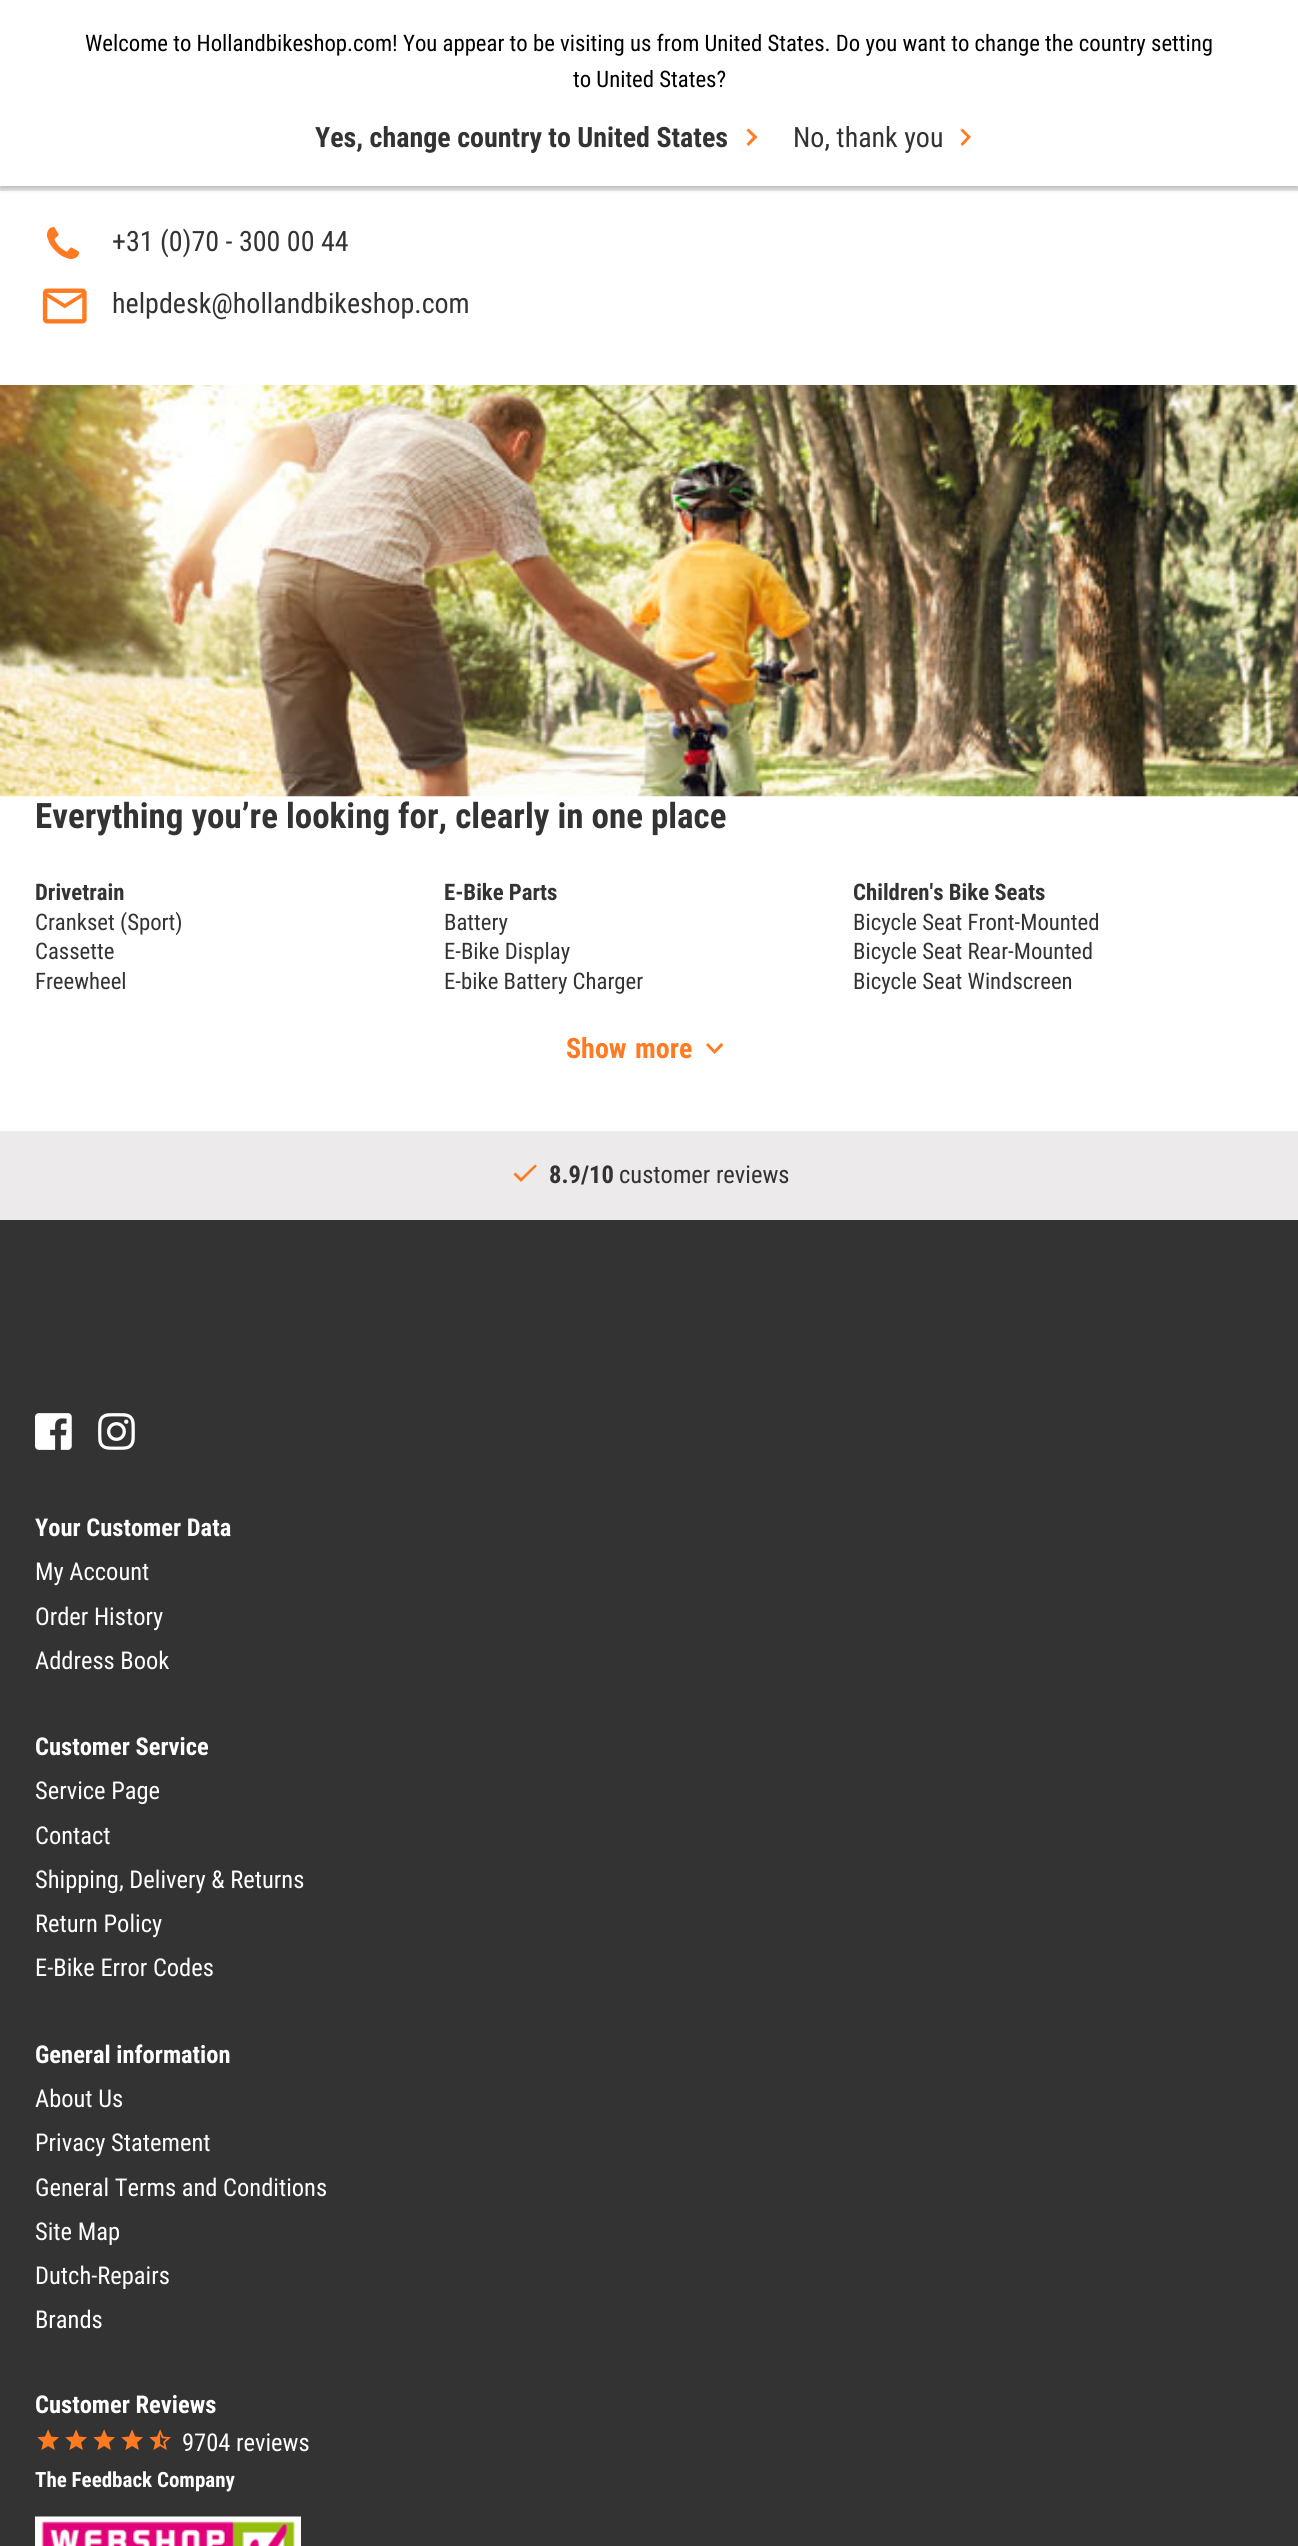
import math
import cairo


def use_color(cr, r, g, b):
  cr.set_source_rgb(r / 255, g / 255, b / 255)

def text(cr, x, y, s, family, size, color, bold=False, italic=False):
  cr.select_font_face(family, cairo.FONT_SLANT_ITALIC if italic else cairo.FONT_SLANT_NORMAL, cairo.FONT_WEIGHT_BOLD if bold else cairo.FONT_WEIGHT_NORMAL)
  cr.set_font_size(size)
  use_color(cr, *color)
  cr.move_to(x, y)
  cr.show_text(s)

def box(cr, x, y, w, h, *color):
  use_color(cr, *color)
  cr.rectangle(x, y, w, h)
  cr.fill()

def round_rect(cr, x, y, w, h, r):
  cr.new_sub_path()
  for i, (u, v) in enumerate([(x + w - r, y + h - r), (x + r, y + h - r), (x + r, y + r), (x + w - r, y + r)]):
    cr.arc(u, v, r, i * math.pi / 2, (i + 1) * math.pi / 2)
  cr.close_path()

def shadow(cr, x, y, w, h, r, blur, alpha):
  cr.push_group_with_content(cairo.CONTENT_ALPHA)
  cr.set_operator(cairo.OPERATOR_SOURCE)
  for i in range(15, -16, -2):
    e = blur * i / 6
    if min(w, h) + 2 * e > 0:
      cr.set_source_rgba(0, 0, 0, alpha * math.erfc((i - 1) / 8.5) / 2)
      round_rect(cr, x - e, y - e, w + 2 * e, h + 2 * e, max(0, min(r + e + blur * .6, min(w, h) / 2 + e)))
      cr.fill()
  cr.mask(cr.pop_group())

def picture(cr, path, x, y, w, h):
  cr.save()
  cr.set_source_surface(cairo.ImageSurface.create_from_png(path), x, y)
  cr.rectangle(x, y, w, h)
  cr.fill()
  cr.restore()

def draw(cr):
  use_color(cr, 255, 255, 255)
  cr.paint()
  box(cr, 0, 186, 1298, 5, 236, 234, 235)
  use_color(cr, 0, 0, 0)
  shadow(cr, 0, 4, 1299, 185, 0, 2.5, 0.2)
  box(cr, 0, 0, 1298, 186, 255, 255, 255)
  use_color(cr, 255, 122, 33)
  cr.new_path()
  cr.move_to(746.5, 130.5)
  cr.line_to(753, 137)
  cr.line_to(746.5, 144)
  cr.line_to(748.5, 146)
  cr.line_to(757.5, 137)
  cr.line_to(748.5, 128.5)
  cr.close_path()
  cr.fill()
  cr.new_path()
  cr.move_to(960.5, 130.5)
  cr.line_to(967, 137)
  cr.line_to(960.5, 144)
  cr.line_to(962.5, 146)
  cr.line_to(971, 137)
  cr.line_to(962.5, 128.5)
  cr.close_path()
  cr.fill()
  picture(cr, "img_01.png", 46, 227, 34, 32)
  picture(cr, "img_02.png", 42, 288, 45, 36)
  picture(cr, "img_03.png", 0, 385, 1298, 412)
  cr.new_path()
  cr.move_to(721, 1043)
  cr.line_to(714.5, 1050)
  cr.line_to(708, 1043)
  cr.line_to(706, 1045)
  cr.line_to(714.5, 1054)
  cr.line_to(723.5, 1045)
  cr.close_path()
  cr.fill()
  box(cr, 0, 1131, 1298, 89, 236, 234, 235)
  use_color(cr, 255, 122, 33)
  cr.new_path()
  cr.move_to(521, 1178)
  cr.line_to(515.5, 1172.5)
  cr.line_to(513.5, 1174.5)
  cr.line_to(521, 1182)
  cr.line_to(537, 1166)
  cr.line_to(535, 1164.5)
  cr.close_path()
  cr.fill()
  box(cr, 0, 1220, 1298, 1326, 51, 51, 51)
  picture(cr, "img_04.png", 35, 1413, 37, 37)
  picture(cr, "img_05.png", 98, 1413, 37, 37)
  picture(cr, "img_06.png", 37, 2429, 22, 21)
  picture(cr, "img_06.png", 65, 2429, 22, 21)
  picture(cr, "img_06.png", 93, 2429, 22, 21)
  picture(cr, "img_06.png", 121, 2429, 22, 21)
  picture(cr, "img_07.png", 149, 2429, 22, 21)
  picture(cr, "img_08.png", 35, 2516, 266, 30)
  text(cr, 85, 51, "Welcome to Hollandbikeshop.com! You appear to be visiting us from United States. Do you want to change the country setting", "Roboto Condensed", 22.75, (0, 0, 0))
  text(cr, 573, 87, "to United States?", "Roboto Condensed", 22.75, (0, 0, 0))
  text(cr, 315, 147, "Yes, change country to United States", "Roboto Condensed", 28, (51, 51, 51), bold=True)
  text(cr, 793, 147, "No, thank you", "Roboto Condensed", 28, (51, 51, 51))
  text(cr, 112, 251, "+31 (0)70 - 300 00 44", "Roboto Condensed", 28, (51, 51, 51))
  text(cr, 112, 313, "helpdesk@hollandbikeshop.com", "Roboto Condensed", 28, (51, 51, 51))
  text(cr, 35, 828, "Everything you’re looking for, clearly in one place", "Roboto Condensed", 35, (51, 51, 51), bold=True)
  text(cr, 35, 900, "Drivetrain", "Roboto Condensed", 22.75, (51, 51, 51), bold=True)
  text(cr, 35, 930, "Crankset (Sport)", "Roboto Condensed", 22.75, (51, 51, 51))
  text(cr, 35, 959, "Cassette", "Roboto Condensed", 22.75, (51, 51, 51))
  text(cr, 35, 989, "Freewheel", "Roboto Condensed", 22.75, (51, 51, 51))
  text(cr, 444, 900, "E-Bike Parts", "Roboto Condensed", 22.75, (51, 51, 51), bold=True)
  text(cr, 444, 930, "Battery", "Roboto Condensed", 22.75, (51, 51, 51))
  text(cr, 444, 959, "E-Bike Display", "Roboto Condensed", 22.75, (51, 51, 51))
  text(cr, 444, 989, "E-bike Battery Charger", "Roboto Condensed", 22.75, (51, 51, 51))
  text(cr, 853, 900, "Children's Bike Seats", "Roboto Condensed", 22.75, (51, 51, 51), bold=True)
  text(cr, 853, 930, "Bicycle Seat Front-Mounted", "Roboto Condensed", 22.75, (51, 51, 51))
  text(cr, 853, 959, "Bicycle Seat Rear-Mounted", "Roboto Condensed", 22.75, (51, 51, 51))
  text(cr, 853, 989, "Bicycle Seat Windscreen", "Roboto Condensed", 22.75, (51, 51, 51))
  text(cr, 566, 1058, "Show", "Roboto Condensed", 28, (255, 122, 33), bold=True)
  text(cr, 635, 1058, "more", "Roboto Condensed", 28, (255, 122, 33), bold=True)
  text(cr, 549, 1183, "8.9/10", "Roboto Condensed", 24.5, (51, 51, 51), bold=True)
  text(cr, 619, 1183, "customer reviews", "Roboto Condensed", 24.5, (51, 51, 51))
  text(cr, 35, 1536, "Your Customer Data", "Roboto Condensed", 24.5, (255, 255, 255), bold=True)
  text(cr, 35, 1580, "My Account", "Roboto Condensed", 24.5, (255, 255, 255))
  text(cr, 35, 1625, "Order History", "Roboto Condensed", 24.5, (255, 255, 255))
  text(cr, 35, 1669, "Address Book", "Roboto Condensed", 24.5, (255, 255, 255))
  text(cr, 35, 1755, "Customer Service", "Roboto Condensed", 24.5, (255, 255, 255), bold=True)
  text(cr, 35, 1799, "Service Page", "Roboto Condensed", 24.5, (255, 255, 255))
  text(cr, 35, 1844, "Contact", "Roboto Condensed", 24.5, (255, 255, 255))
  text(cr, 35, 1888, "Shipping, Delivery & Returns", "Roboto Condensed", 24.5, (255, 255, 255))
  text(cr, 35, 1932, "Return Policy", "Roboto Condensed", 24.5, (255, 255, 255))
  text(cr, 35, 1976, "E-Bike Error Codes", "Roboto Condensed", 24.5, (255, 255, 255))
  text(cr, 35, 2063, "General information", "Roboto Condensed", 24.5, (255, 255, 255), bold=True)
  text(cr, 35, 2107, "About Us", "Roboto Condensed", 24.5, (255, 255, 255))
  text(cr, 35, 2151, "Privacy Statement", "Roboto Condensed", 24.5, (255, 255, 255))
  text(cr, 35, 2196, "General Terms and Conditions", "Roboto Condensed", 24.5, (255, 255, 255))
  text(cr, 35, 2240, "Site Map", "Roboto Condensed", 24.5, (255, 255, 255))
  text(cr, 35, 2284, "Dutch-Repairs", "Roboto Condensed", 24.5, (255, 255, 255))
  text(cr, 35, 2328, "Brands", "Roboto Condensed", 24.5, (255, 255, 255))
  text(cr, 35, 2413, "Customer Reviews", "Roboto Condensed", 24.5, (255, 255, 255), bold=True)
  text(cr, 182, 2451, "9704 reviews", "Roboto Condensed", 24.5, (255, 255, 255))
  text(cr, 35, 2487, "The Feedback Company", "Roboto Condensed", 21, (255, 255, 255), bold=True)


surface = cairo.ImageSurface(cairo.FORMAT_RGB24, 1298, 2546)
cr = cairo.Context(surface)
options = cairo.FontOptions()
options.set_hint_metrics(cairo.HINT_METRICS_OFF)
options.set_hint_style(cairo.HINT_STYLE_NONE)
cr.set_font_options(options)
cr.set_miter_limit(4)
draw(cr)
surface.write_to_png("out.png")
